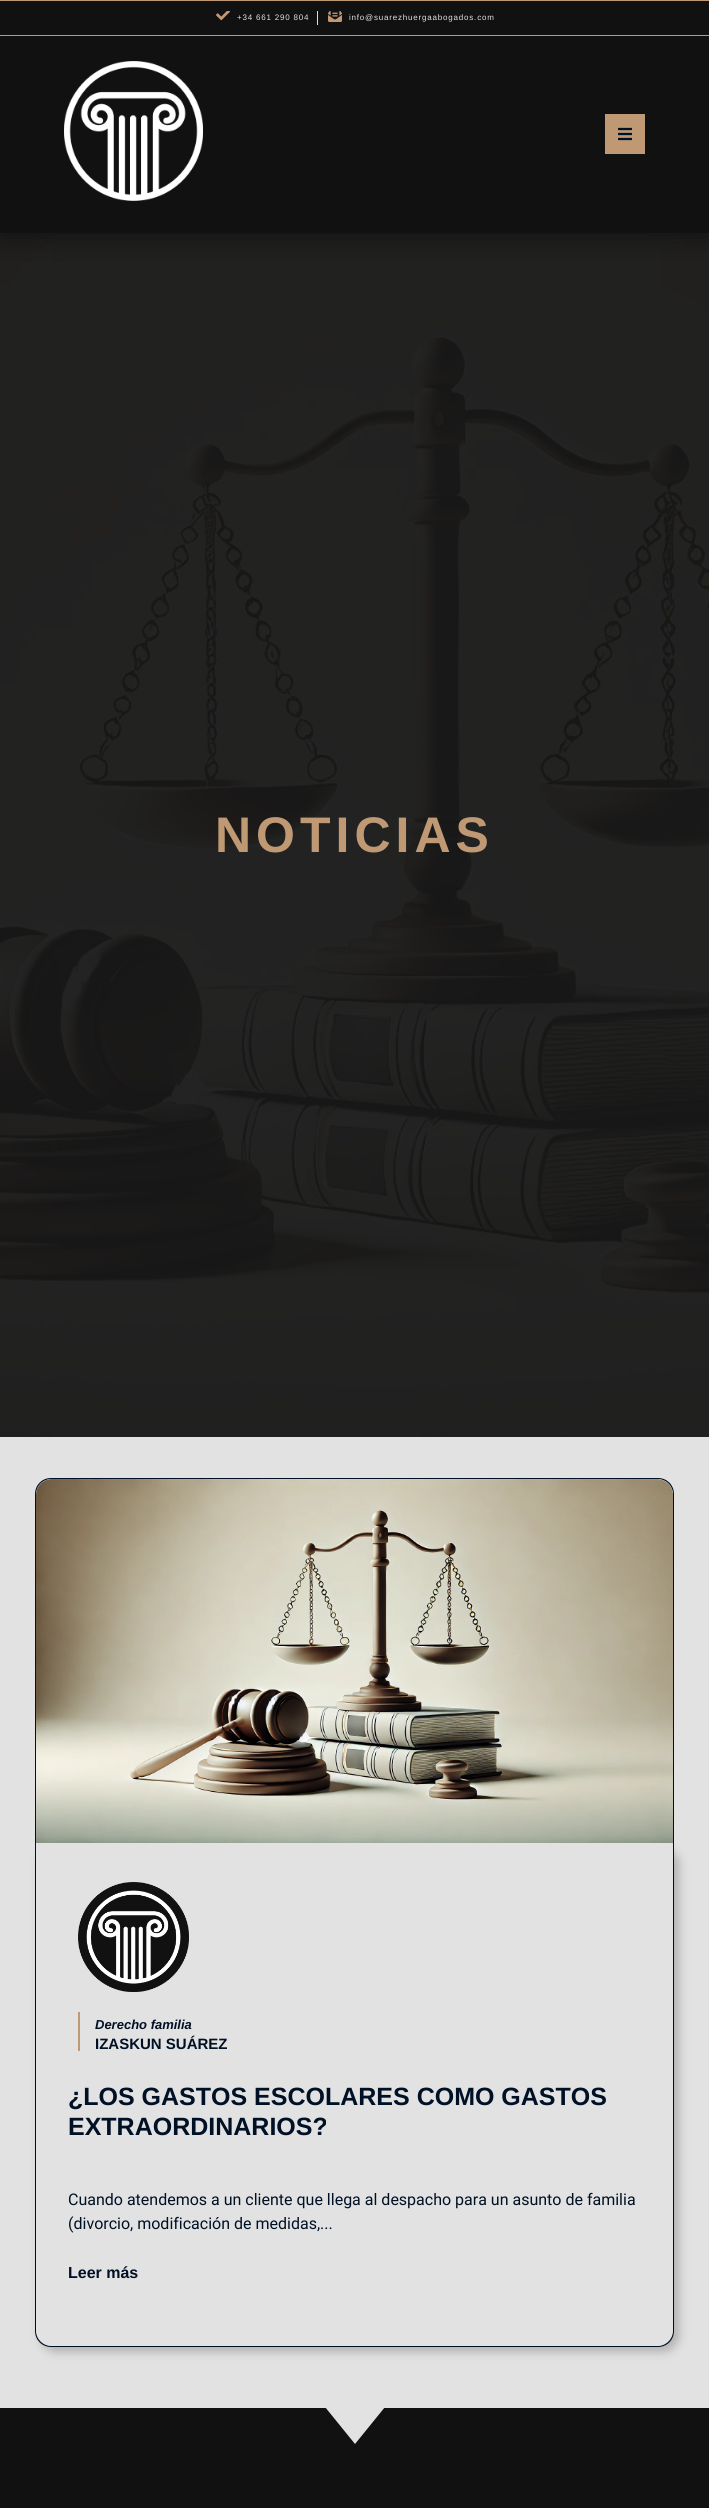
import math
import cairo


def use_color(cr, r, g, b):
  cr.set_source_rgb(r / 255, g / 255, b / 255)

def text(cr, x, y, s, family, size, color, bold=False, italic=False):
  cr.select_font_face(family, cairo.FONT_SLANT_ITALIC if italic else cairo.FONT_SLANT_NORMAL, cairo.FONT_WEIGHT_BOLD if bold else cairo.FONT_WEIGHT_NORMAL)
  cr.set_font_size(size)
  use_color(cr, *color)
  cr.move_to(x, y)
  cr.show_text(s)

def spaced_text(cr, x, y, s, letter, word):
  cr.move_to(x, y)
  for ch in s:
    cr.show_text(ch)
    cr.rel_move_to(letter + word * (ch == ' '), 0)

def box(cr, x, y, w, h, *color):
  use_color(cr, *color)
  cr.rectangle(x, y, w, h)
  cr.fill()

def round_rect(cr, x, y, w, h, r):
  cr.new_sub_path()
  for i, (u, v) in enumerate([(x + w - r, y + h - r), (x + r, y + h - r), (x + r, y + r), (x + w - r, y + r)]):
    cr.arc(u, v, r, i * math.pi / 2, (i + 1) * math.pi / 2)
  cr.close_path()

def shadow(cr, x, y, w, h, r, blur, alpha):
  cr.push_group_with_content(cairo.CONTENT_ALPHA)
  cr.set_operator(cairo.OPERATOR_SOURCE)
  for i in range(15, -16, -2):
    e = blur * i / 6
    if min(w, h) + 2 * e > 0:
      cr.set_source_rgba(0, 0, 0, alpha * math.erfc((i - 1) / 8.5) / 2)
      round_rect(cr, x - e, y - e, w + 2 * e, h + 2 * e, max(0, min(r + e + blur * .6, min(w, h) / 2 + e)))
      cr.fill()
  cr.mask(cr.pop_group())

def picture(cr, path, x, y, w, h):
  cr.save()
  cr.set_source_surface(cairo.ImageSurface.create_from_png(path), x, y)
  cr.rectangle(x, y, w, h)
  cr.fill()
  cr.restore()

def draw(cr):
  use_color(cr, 226, 226, 226)
  cr.paint()
  picture(cr, "img_05.png", 0, 233, 709, 1204)
  use_color(cr, 0, 0, 0)
  shadow(cr, 0, 4, 709, 233, 0, 13.5, 0.5)
  box(cr, 0, 1, 709, 232, 17, 17, 17)
  box(cr, 0, 0, 709, 1, 191, 152, 116)
  box(cr, 0, 35, 709, 1, 191, 152, 116)
  picture(cr, "img_01.png", 216, 11, 14, 10)
  box(cr, 317, 11, 1, 14, 221, 221, 221)
  picture(cr, "img_02.png", 328, 11, 14, 11)
  picture(cr, "img_03.png", 64, 61, 139, 140)
  box(cr, 605, 114, 40, 40, 191, 152, 116)
  picture(cr, "img_04.png", 618, 127, 14, 14)
  use_color(cr, 0, 16, 37)
  cr.set_fill_rule(cairo.FILL_RULE_EVEN_ODD)
  cr.new_path()
  cr.move_to(51, 1478)
  cr.line_to(658, 1478)
  cr.curve_to(667, 1478, 674, 1485, 674, 1494)
  cr.line_to(674, 1843)
  cr.line_to(35, 1843)
  cr.line_to(35, 1494)
  cr.curve_to(35, 1485, 42, 1478, 51, 1478)
  cr.close_path()
  cr.move_to(51, 1479)
  cr.line_to(658, 1479)
  cr.curve_to(666, 1479, 673, 1486, 673, 1494)
  cr.line_to(673, 1843)
  cr.line_to(36, 1843)
  cr.line_to(36, 1494)
  cr.curve_to(36, 1486, 43, 1479, 51, 1479)
  cr.close_path()
  cr.fill()
  picture(cr, "img_06.png", 36, 1479, 637, 364)
  cr.save()
  cr.new_path()
  cr.move_to(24, 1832)
  cr.line_to(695, 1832)
  cr.line_to(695, 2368)
  cr.line_to(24, 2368)
  cr.close_path()
  cr.move_to(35, 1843)
  cr.line_to(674, 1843)
  cr.line_to(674, 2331)
  cr.curve_to(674, 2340, 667, 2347, 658, 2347)
  cr.line_to(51, 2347)
  cr.curve_to(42, 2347, 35, 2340, 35, 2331)
  cr.close_path()
  cr.clip()
  use_color(cr, 0, 0, 0)
  shadow(cr, 40, 1848, 639, 504, 16, 5, 0.22)
  cr.restore()
  cr.new_path()
  cr.move_to(35, 1843)
  cr.line_to(674, 1843)
  cr.line_to(674, 2331)
  cr.curve_to(674, 2340, 667, 2347, 658, 2347)
  cr.line_to(51, 2347)
  cr.curve_to(42, 2347, 35, 2340, 35, 2331)
  cr.close_path()
  cr.move_to(36, 1843)
  cr.line_to(673, 1843)
  cr.line_to(673, 2331)
  cr.curve_to(673, 2339, 666, 2346, 658, 2346)
  cr.line_to(51, 2346)
  cr.curve_to(43, 2346, 36, 2339, 36, 2331)
  cr.close_path()
  cr.fill()
  picture(cr, "img_07.png", 78, 1882, 111, 110)
  box(cr, 78, 2012, 2, 39, 191, 152, 116)
  box(cr, 0, 2408, 709, 100, 17, 17, 17)
  use_color(cr, 226, 226, 226)
  cr.set_fill_rule(cairo.FILL_RULE_WINDING)
  cr.new_path()
  cr.move_to(355, 2444)
  cr.line_to(325, 2407)
  cr.line_to(385, 2407)
  cr.close_path()
  cr.fill()
  cr.select_font_face("Liberation Sans")
  cr.set_font_size(8)
  spaced_text(cr, 237, 20, "+34 661 290 804", 0.8, 0)
  spaced_text(cr, 349, 20, "info@suarezhuergaabogados.com", 0.8, 0)
  cr.select_font_face("Liberation Sans", cairo.FONT_SLANT_NORMAL, cairo.FONT_WEIGHT_BOLD)
  cr.set_font_size(50)
  use_color(cr, 191, 152, 116)
  spaced_text(cr, 215, 852, "NOTICIAS", 5, 0)
  text(cr, 95, 2029, "Derecho familia", "Liberation Sans", 13, (0, 16, 37), bold=True, italic=True)
  text(cr, 95, 2049, "IZASKUN SUÁREZ", "Liberation Sans", 15, (0, 16, 37), bold=True)
  text(cr, 68, 2105, "¿LOS GASTOS ESCOLARES COMO GASTOS", "Liberation Sans", 25, (0, 16, 37), bold=True)
  text(cr, 68, 2135, "EXTRAORDINARIOS?", "Liberation Sans", 25, (0, 16, 37), bold=True)
  text(cr, 68, 2205, "Cuando atendemos a un cliente que llega al despacho para un asunto de familia", "Roboto", 16, (0, 16, 37))
  text(cr, 68, 2229, "(divorcio, modificación de medidas,...", "Roboto", 16, (0, 16, 37))
  text(cr, 68, 2278, "Leer más", "Liberation Sans", 16, (0, 16, 37), bold=True)


surface = cairo.ImageSurface(cairo.FORMAT_RGB24, 709, 2508)
cr = cairo.Context(surface)
options = cairo.FontOptions()
options.set_hint_metrics(cairo.HINT_METRICS_OFF)
options.set_hint_style(cairo.HINT_STYLE_NONE)
cr.set_font_options(options)
cr.set_miter_limit(4)
draw(cr)
surface.write_to_png("out.png")
